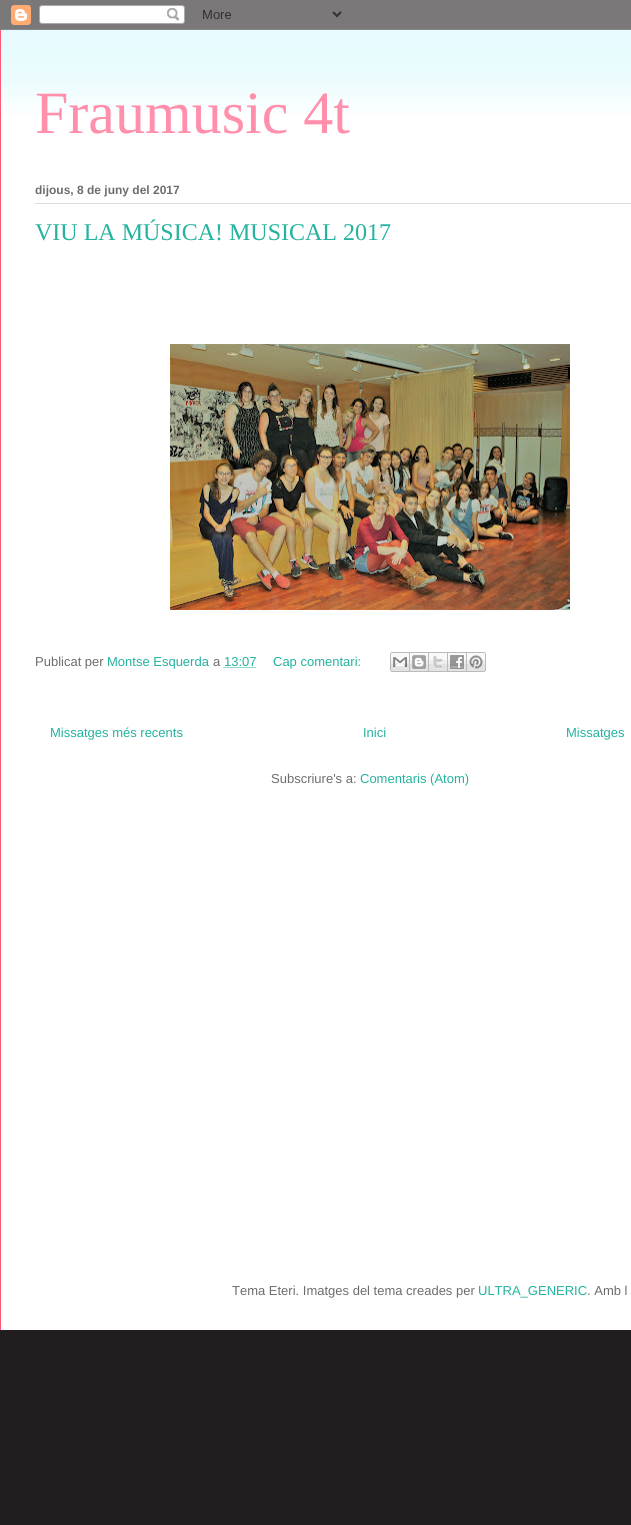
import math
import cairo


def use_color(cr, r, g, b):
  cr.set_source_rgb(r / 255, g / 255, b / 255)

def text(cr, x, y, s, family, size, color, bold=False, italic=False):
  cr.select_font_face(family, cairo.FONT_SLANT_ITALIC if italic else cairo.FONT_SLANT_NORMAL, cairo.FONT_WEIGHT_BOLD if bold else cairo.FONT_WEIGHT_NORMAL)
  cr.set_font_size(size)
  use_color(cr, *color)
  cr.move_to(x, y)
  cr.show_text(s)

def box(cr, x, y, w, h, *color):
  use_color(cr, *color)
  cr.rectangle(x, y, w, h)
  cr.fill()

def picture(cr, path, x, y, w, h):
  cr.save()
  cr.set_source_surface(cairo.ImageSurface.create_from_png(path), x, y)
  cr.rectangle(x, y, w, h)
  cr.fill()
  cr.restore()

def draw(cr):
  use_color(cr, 34, 30, 31)
  cr.paint()
  picture(cr, "img_01.png", 0, 0, 631, 30)
  box(cr, 1, 30, 630, 1300, 255, 255, 255)
  picture(cr, "img_02.png", 1, 30, 630, 84)
  box(cr, 0, 30, 1, 1300, 251, 89, 118)
  box(cr, 35, 203, 596, 1, 220, 220, 220)
  picture(cr, "img_03.png", 170, 344, 400, 266)
  cr.new_path()
  cr.move_to(223.5, 667.5)
  cr.line_to(256, 667.5)
  use_color(cr, 35, 179, 158)
  cr.set_line_width(1)
  cr.set_dash([1, 1])
  cr.stroke()
  picture(cr, "img_04.png", 390, 652, 20, 20)
  picture(cr, "img_05.png", 410, 652, 19, 20)
  picture(cr, "img_06.png", 429, 652, 19, 20)
  picture(cr, "img_07.png", 448, 652, 19, 20)
  picture(cr, "img_08.png", 467, 652, 19, 20)
  text(cr, 35, 133, "Fraumusic 4t", "Liberation Serif", 60, (255, 143, 171))
  text(cr, 35, 194, "dijous, 8 de juny del 2017", "Liberation Sans", 12, (109, 109, 109), bold=True)
  text(cr, 35, 240, "VIU LA MÚSICA! MUSICAL 2017", "Liberation Serif", 24, (35, 179, 158))
  text(cr, 35, 666, "Publicat per", "Liberation Sans", 13, (109, 109, 109))
  text(cr, 107, 666, "Montse Esquerda", "Liberation Sans", 13, (35, 179, 158))
  text(cr, 213, 666, "a", "Liberation Sans", 13, (109, 109, 109))
  text(cr, 224, 666, "13:07", "Liberation Sans", 13, (35, 179, 158))
  text(cr, 273, 666, "Cap comentari:", "Liberation Sans", 13, (35, 179, 158))
  text(cr, 50, 737, "Missatges més recents", "Liberation Sans", 13, (35, 179, 158))
  text(cr, 363, 737, "Inici", "Liberation Sans", 13, (35, 179, 158))
  text(cr, 566, 737, "Missatges", "Liberation Sans", 13, (35, 179, 158))
  text(cr, 271, 783, "Subscriure's a:", "Liberation Sans", 13, (109, 109, 109))
  text(cr, 360, 783, "Comentaris (Atom)", "Liberation Sans", 13, (35, 179, 158))
  text(cr, 232, 1295, "Tema Eteri. Imatges del tema creades per", "Liberation Sans", 13, (109, 109, 109))
  text(cr, 478, 1295, "ULTRA_GENERIC", "Liberation Sans", 13, (35, 179, 158))
  text(cr, 587, 1295, ". Amb l", "Liberation Sans", 13, (109, 109, 109))


surface = cairo.ImageSurface(cairo.FORMAT_RGB24, 631, 1525)
cr = cairo.Context(surface)
options = cairo.FontOptions()
options.set_hint_metrics(cairo.HINT_METRICS_OFF)
options.set_hint_style(cairo.HINT_STYLE_NONE)
cr.set_font_options(options)
cr.set_miter_limit(4)
draw(cr)
surface.write_to_png("out.png")
